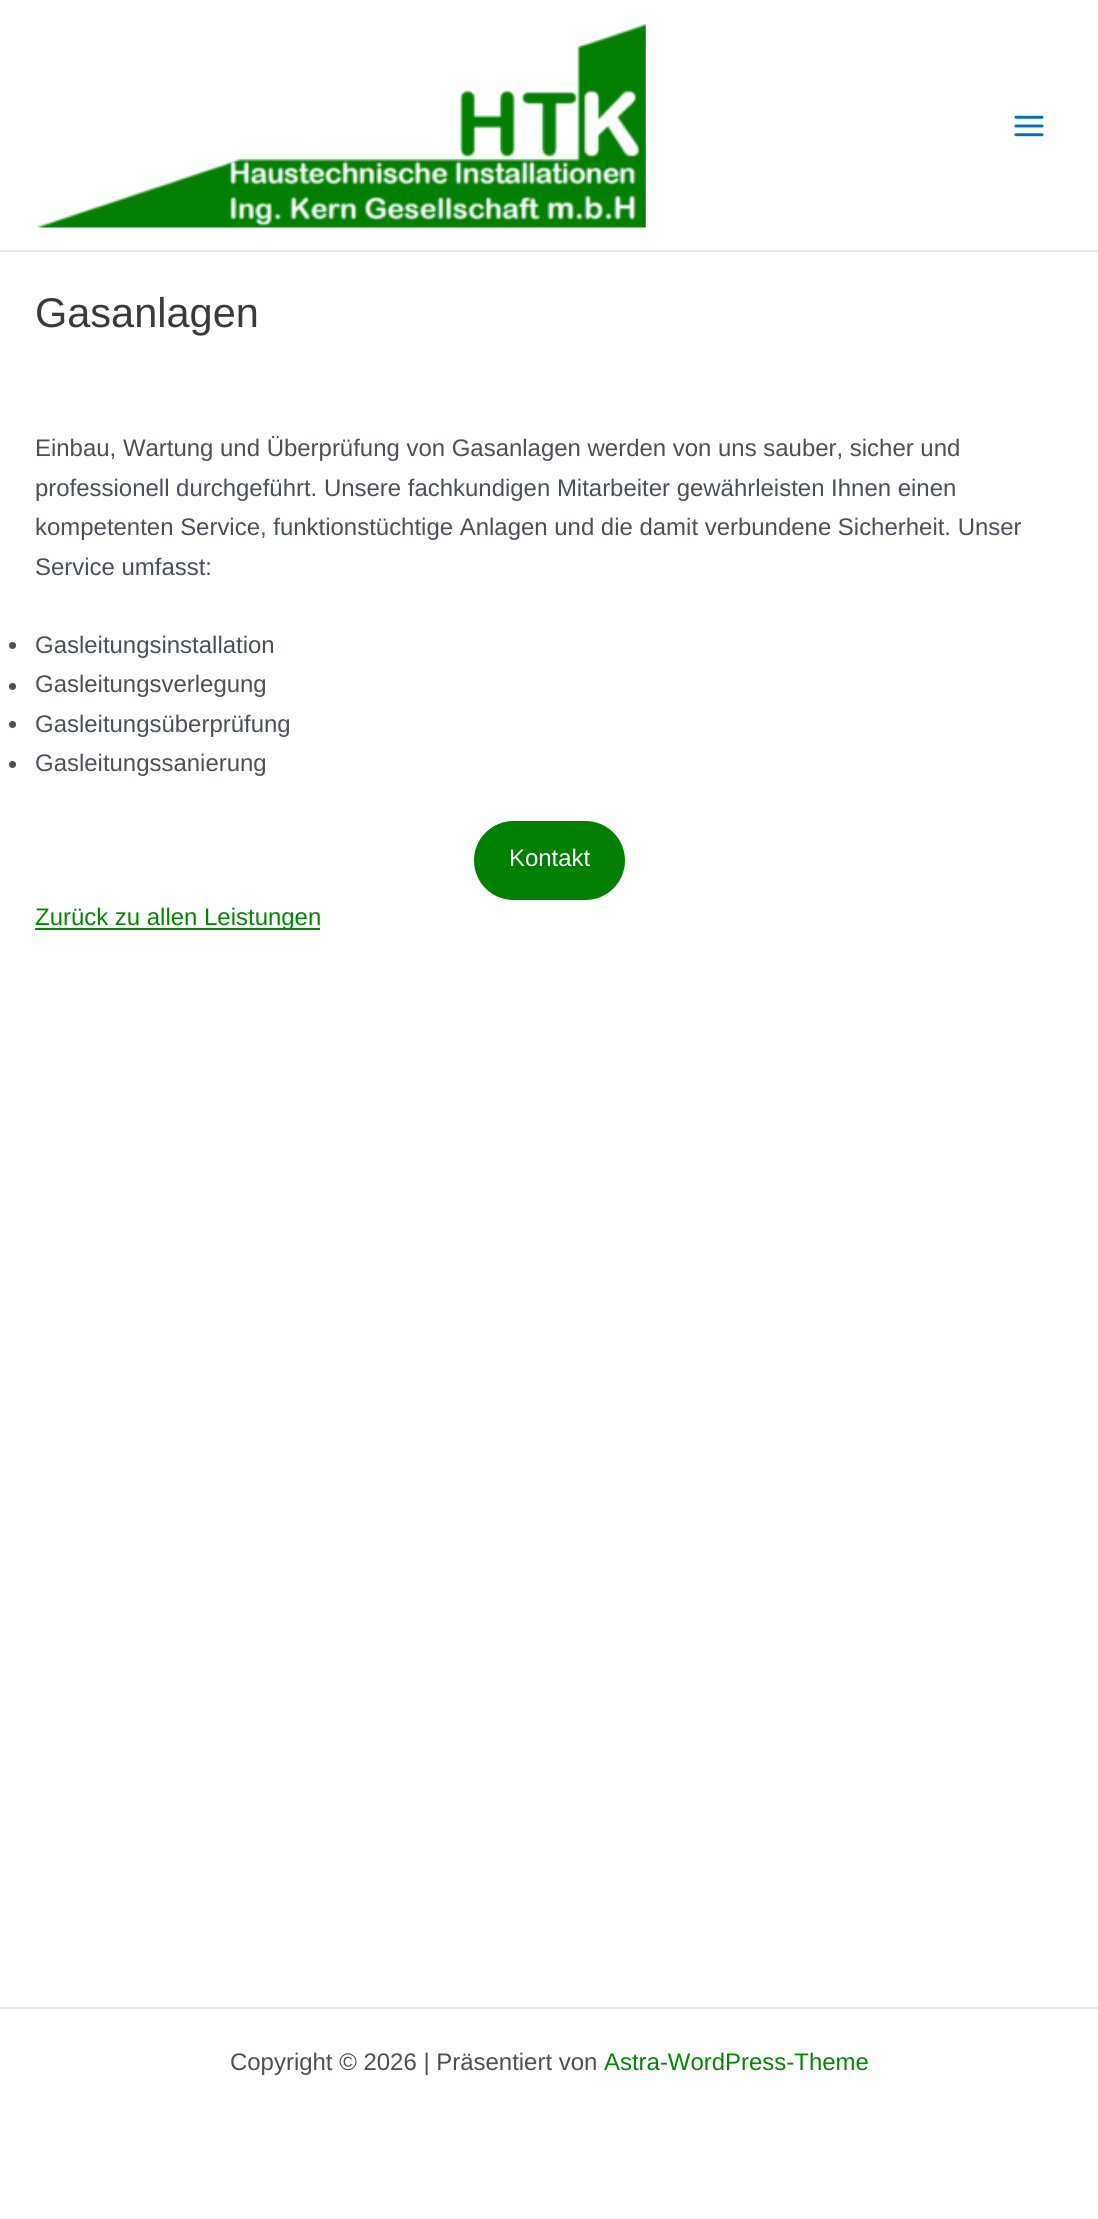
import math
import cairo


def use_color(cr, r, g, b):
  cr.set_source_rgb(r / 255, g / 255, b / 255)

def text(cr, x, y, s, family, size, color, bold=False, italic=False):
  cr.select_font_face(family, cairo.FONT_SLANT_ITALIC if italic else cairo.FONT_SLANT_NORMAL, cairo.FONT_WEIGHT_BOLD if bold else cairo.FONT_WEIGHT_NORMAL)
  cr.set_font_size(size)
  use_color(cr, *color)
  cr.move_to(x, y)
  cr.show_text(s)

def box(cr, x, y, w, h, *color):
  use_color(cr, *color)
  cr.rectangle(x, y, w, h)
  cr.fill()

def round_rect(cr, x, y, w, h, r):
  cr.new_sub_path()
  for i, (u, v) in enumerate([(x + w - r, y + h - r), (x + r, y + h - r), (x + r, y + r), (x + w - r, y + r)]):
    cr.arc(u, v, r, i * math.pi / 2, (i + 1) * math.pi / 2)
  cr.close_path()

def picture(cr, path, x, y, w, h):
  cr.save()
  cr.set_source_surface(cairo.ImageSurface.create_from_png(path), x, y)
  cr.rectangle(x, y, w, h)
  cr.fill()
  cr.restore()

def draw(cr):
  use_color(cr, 255, 255, 255)
  cr.paint()
  box(cr, 0, 250, 1098, 2, 229, 229, 229)
  picture(cr, "img_01.png", 36, 24, 610, 204)
  picture(cr, "img_02.png", 1014, 115, 30, 22)
  use_color(cr, 75, 79, 88)
  cr.arc(12.5, 645.5, 3.5, 0, 2 * math.pi)
  cr.fill()
  cr.arc(12.5, 686.5, 3.5, 0, 2 * math.pi)
  cr.fill()
  cr.arc(12.5, 724.5, 3.5, 0, 2 * math.pi)
  cr.fill()
  cr.arc(12.5, 764.5, 3.5, 0, 2 * math.pi)
  cr.fill()
  use_color(cr, 0, 128, 0)
  round_rect(cr, 474, 821, 151, 79, 39.5)
  cr.fill()
  box(cr, 35, 928, 285, 2, 0, 136, 0)
  box(cr, 0, 2007, 1098, 2, 229, 229, 229)
  text(cr, 35, 327, "Gasanlagen", "Liberation Sans", 41.5, (58, 58, 58))
  text(cr, 35, 456, "Einbau, Wartung und Überprüfung von Gasanlagen werden von uns sauber, sicher und", "Liberation Sans", 23.95, (75, 79, 88))
  text(cr, 35, 496, "professionell durchgeführt. Unsere fachkundigen Mitarbeiter gewährleisten Ihnen einen", "Liberation Sans", 23.95, (75, 79, 88))
  text(cr, 35, 535, "kompetenten Service, funktionstüchtige Anlagen und die damit verbundene Sicherheit. Unser", "Liberation Sans", 23.95, (75, 79, 88))
  text(cr, 35, 575, "Service umfasst:", "Liberation Sans", 23.95, (75, 79, 88))
  text(cr, 35, 653, "Gasleitungsinstallation", "Liberation Sans", 23.95, (75, 79, 88))
  text(cr, 35, 692, "Gasleitungsverlegung", "Liberation Sans", 23.95, (75, 79, 88))
  text(cr, 35, 732, "Gasleitungsüberprüfung", "Liberation Sans", 23.95, (75, 79, 88))
  text(cr, 35, 771, "Gasleitungssanierung", "Liberation Sans", 23.95, (75, 79, 88))
  text(cr, 509, 866, "Kontakt", "Liberation Sans", 23.95, (255, 255, 255))
  text(cr, 35, 925, "Zurück zu allen Leistungen", "Liberation Sans", 23.95, (0, 136, 0))
  text(cr, 230, 2070, "Copyright © 2026 | Präsentiert von", "Liberation Sans", 23.95, (75, 79, 88))
  text(cr, 604, 2070, "Astra-WordPress-Theme", "Liberation Sans", 23.95, (0, 136, 0))


surface = cairo.ImageSurface(cairo.FORMAT_RGB24, 1098, 2219)
cr = cairo.Context(surface)
options = cairo.FontOptions()
options.set_hint_metrics(cairo.HINT_METRICS_OFF)
options.set_hint_style(cairo.HINT_STYLE_NONE)
cr.set_font_options(options)
cr.set_miter_limit(4)
draw(cr)
surface.write_to_png("out.png")
